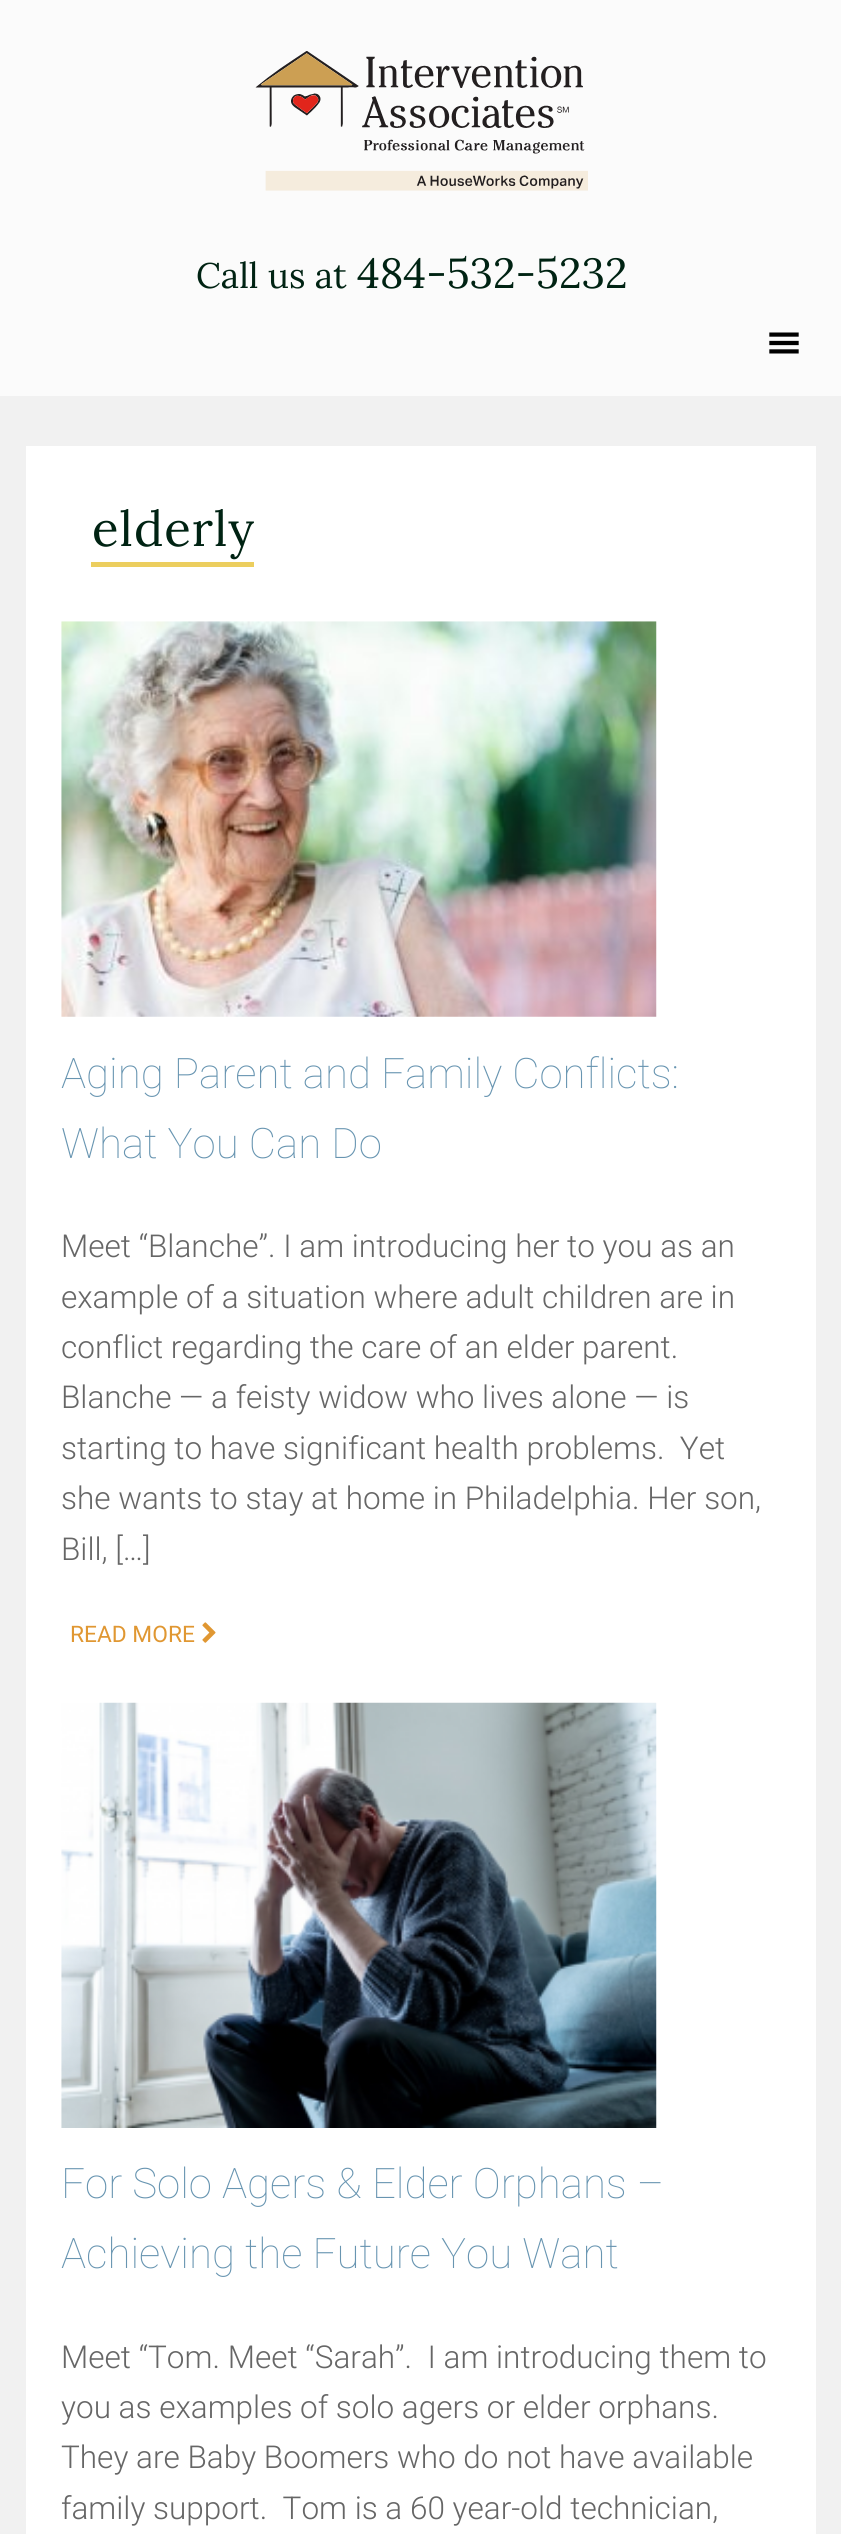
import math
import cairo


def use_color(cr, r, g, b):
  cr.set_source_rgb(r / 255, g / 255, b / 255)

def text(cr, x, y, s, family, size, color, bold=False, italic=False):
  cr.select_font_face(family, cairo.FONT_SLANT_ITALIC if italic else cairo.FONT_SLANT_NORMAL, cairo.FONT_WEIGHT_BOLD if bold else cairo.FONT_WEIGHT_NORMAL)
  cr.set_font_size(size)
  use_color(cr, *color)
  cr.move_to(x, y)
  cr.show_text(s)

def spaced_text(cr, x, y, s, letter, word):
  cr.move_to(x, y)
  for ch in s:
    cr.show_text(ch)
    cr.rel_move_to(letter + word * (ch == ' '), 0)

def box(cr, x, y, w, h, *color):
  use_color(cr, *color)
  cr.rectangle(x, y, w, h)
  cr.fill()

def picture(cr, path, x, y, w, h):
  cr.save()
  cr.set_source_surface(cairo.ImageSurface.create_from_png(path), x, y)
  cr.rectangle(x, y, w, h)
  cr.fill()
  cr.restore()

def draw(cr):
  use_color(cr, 241, 241, 241)
  cr.paint()
  box(cr, 0, 0, 841, 396, 251, 251, 251)
  picture(cr, "img_01.png", 255, 51, 333, 140)
  picture(cr, "img_02.png", 769, 332, 30, 22)
  box(cr, 26, 446, 790, 2088, 255, 255, 255)
  box(cr, 91, 562, 163, 5, 236, 206, 94)
  picture(cr, "img_03.png", 61, 621, 596, 396)
  picture(cr, "img_04.png", 202, 1622, 14, 21)
  picture(cr, "img_05.png", 61, 1702, 596, 426)
  text(cr, 196, 288, "Call us at", "Lora", 35.5, (0, 35, 19))
  text(cr, 357, 288, "484-532-5232", "Lora", 42, (0, 35, 19))
  cr.set_font_size(49)
  spaced_text(cr, 92, 546, "elderly", 1, 0)
  text(cr, 61, 1088, "Aging Parent and Family Conflicts:", "Roboto Thin", 42, (104, 149, 177))
  text(cr, 61, 1158, "What You Can Do", "Roboto Thin", 42, (104, 149, 177))
  text(cr, 61, 1257, "Meet “Blanche”. I am introducing her to you as an", "Roboto Light", 31.5, (102, 102, 102))
  text(cr, 61, 1308, "example of a situation where adult children are in", "Roboto Light", 31.5, (102, 102, 102))
  text(cr, 61, 1358, "conflict regarding the care of an elder parent.", "Roboto Light", 31.5, (102, 102, 102))
  text(cr, 61, 1408, "Blanche — a feisty widow who lives alone — is", "Roboto Light", 31.5, (102, 102, 102))
  text(cr, 61, 1459, "starting to have significant health problems.  Yet", "Roboto Light", 31.5, (102, 102, 102))
  text(cr, 61, 1509, "she wants to stay at home in Philadelphia. Her son,", "Roboto Light", 31.5, (102, 102, 102))
  text(cr, 61, 1560, "Bill, […]", "Roboto Light", 31.5, (102, 102, 102))
  text(cr, 70, 1642, "READ MORE", "Roboto", 22.75, (224, 151, 50))
  text(cr, 61, 2198, "For Solo Agers & Elder Orphans –", "Roboto Thin", 42, (104, 149, 177))
  text(cr, 61, 2268, "Achieving the Future You Want", "Roboto Thin", 42, (104, 149, 177))
  text(cr, 61, 2368, "Meet “Tom. Meet “Sarah”.  I am introducing them to", "Roboto Light", 31.5, (102, 102, 102))
  text(cr, 61, 2418, "you as examples of solo agers or elder orphans.", "Roboto Light", 31.5, (102, 102, 102))
  text(cr, 61, 2468, "They are Baby Boomers who do not have available", "Roboto Light", 31.5, (102, 102, 102))
  text(cr, 61, 2519, "family support.  Tom is a 60 year-old technician,", "Roboto Light", 31.5, (102, 102, 102))


surface = cairo.ImageSurface(cairo.FORMAT_RGB24, 841, 2534)
cr = cairo.Context(surface)
options = cairo.FontOptions()
options.set_hint_metrics(cairo.HINT_METRICS_OFF)
options.set_hint_style(cairo.HINT_STYLE_NONE)
cr.set_font_options(options)
cr.set_miter_limit(4)
draw(cr)
surface.write_to_png("out.png")
